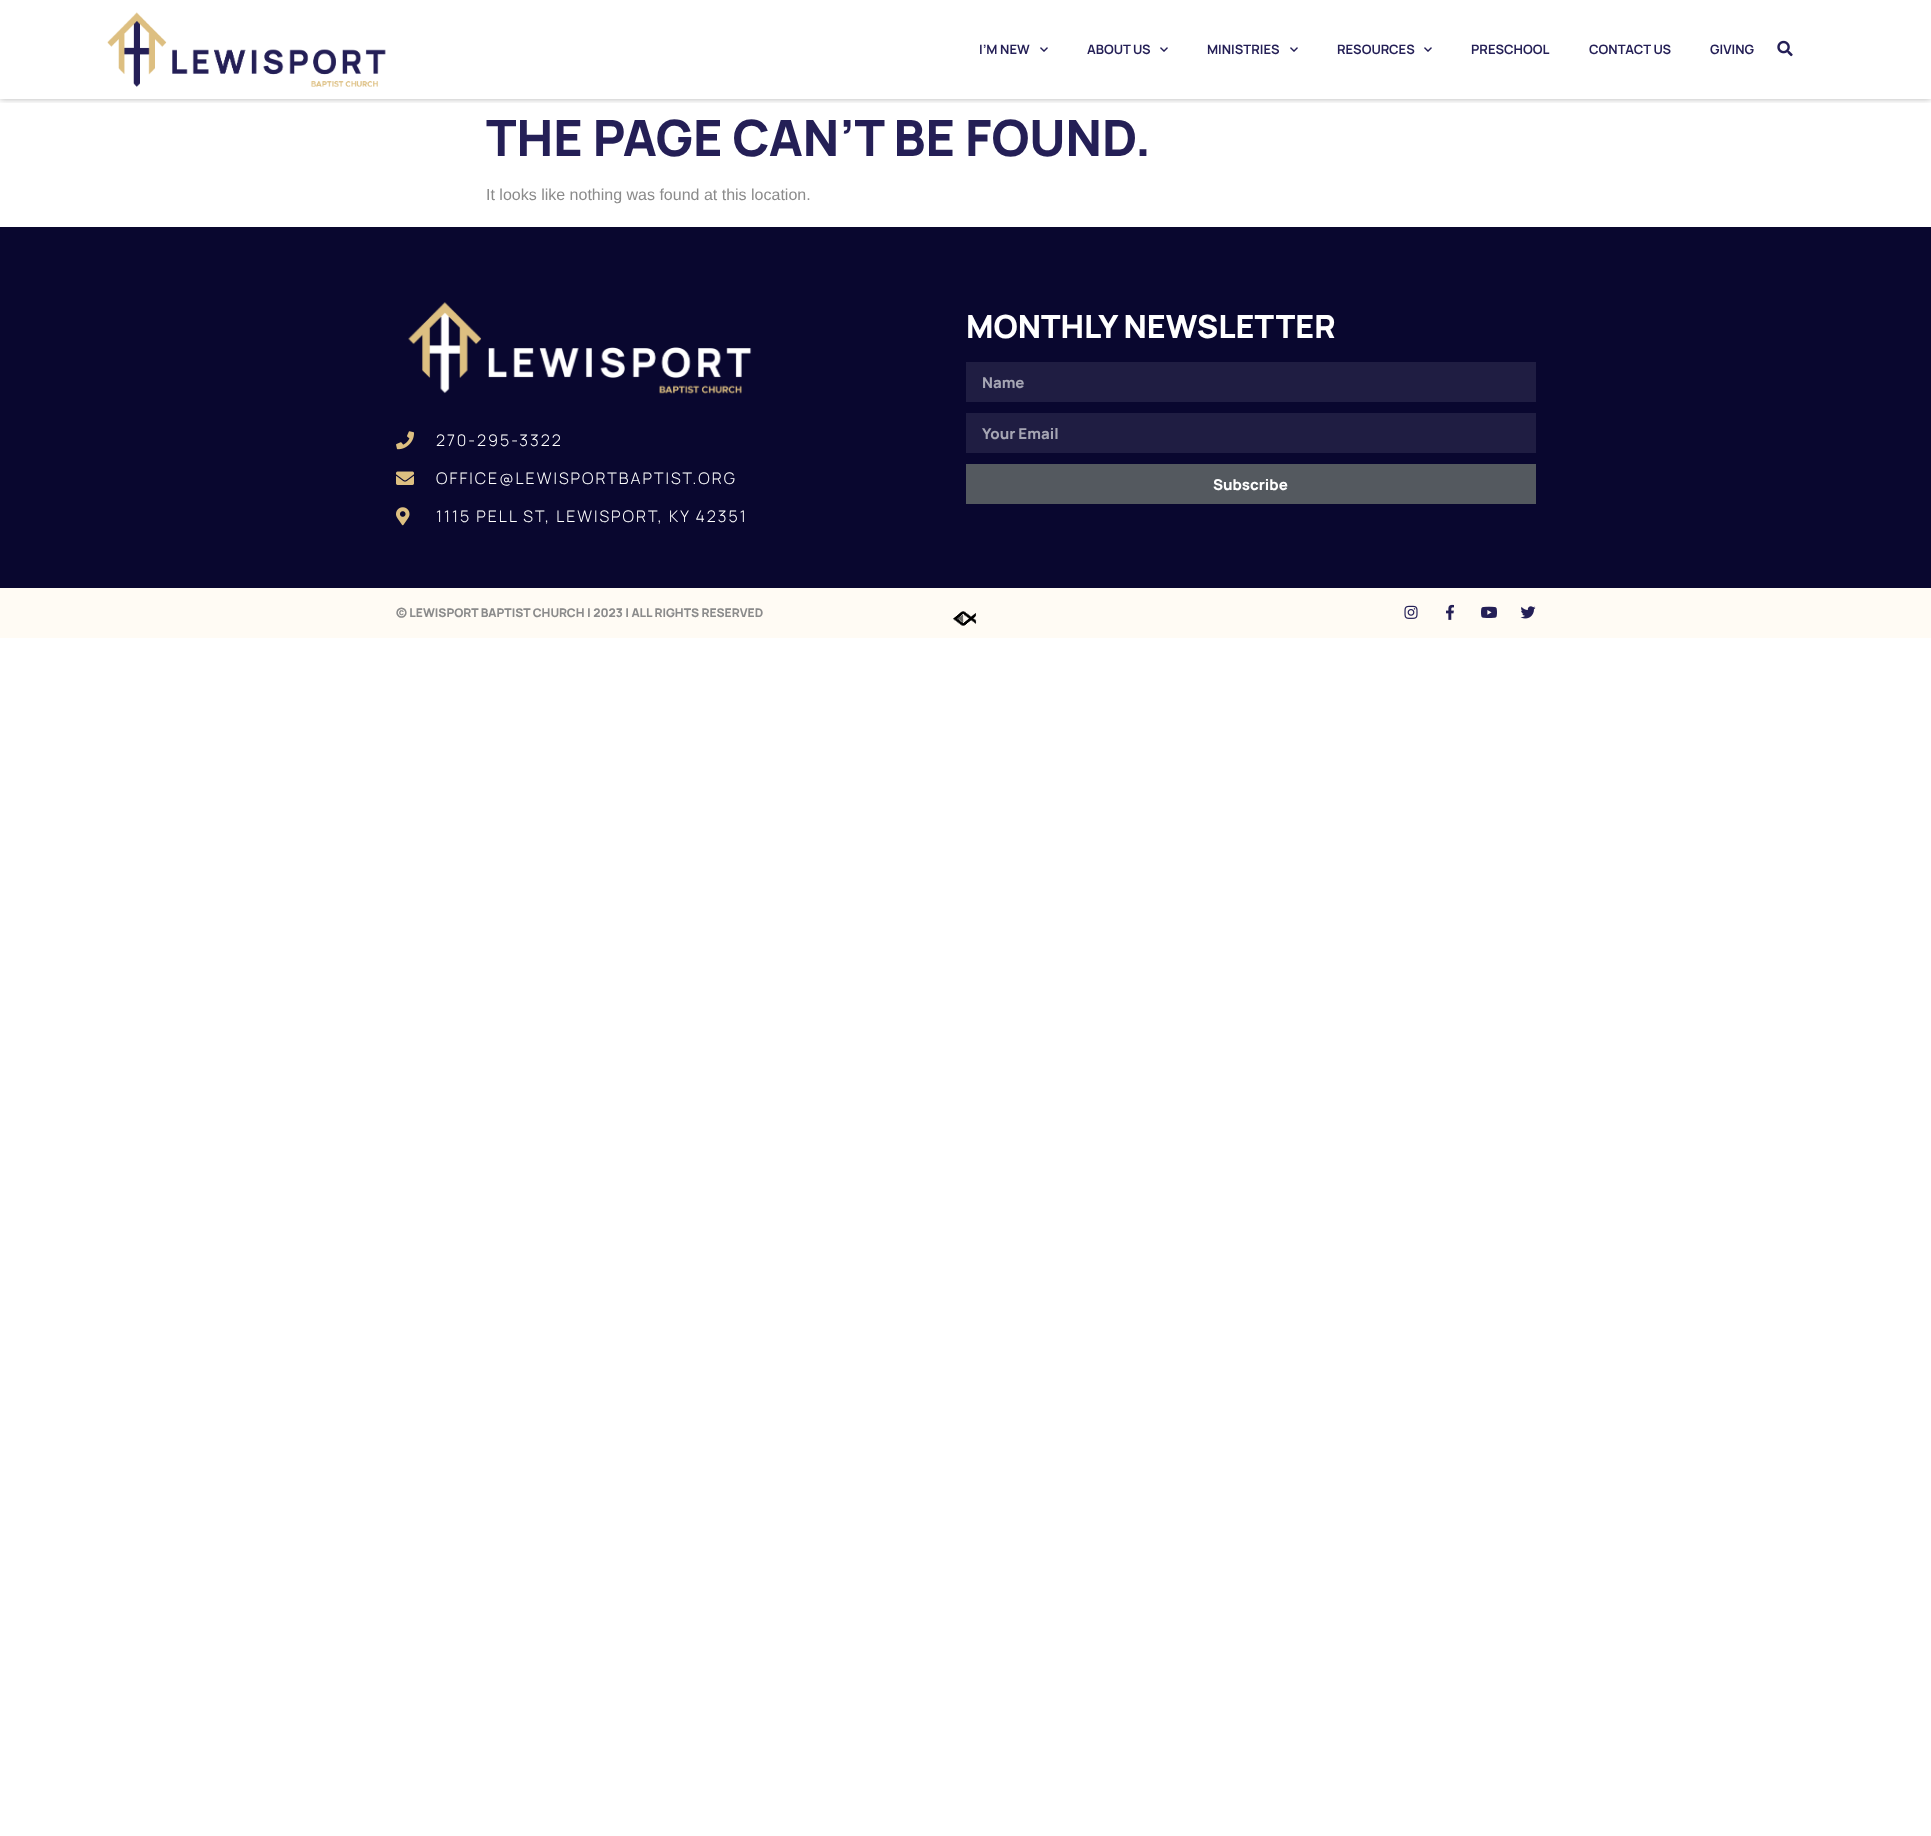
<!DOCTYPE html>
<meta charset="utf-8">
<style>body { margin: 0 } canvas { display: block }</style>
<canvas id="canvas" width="1931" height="1836"></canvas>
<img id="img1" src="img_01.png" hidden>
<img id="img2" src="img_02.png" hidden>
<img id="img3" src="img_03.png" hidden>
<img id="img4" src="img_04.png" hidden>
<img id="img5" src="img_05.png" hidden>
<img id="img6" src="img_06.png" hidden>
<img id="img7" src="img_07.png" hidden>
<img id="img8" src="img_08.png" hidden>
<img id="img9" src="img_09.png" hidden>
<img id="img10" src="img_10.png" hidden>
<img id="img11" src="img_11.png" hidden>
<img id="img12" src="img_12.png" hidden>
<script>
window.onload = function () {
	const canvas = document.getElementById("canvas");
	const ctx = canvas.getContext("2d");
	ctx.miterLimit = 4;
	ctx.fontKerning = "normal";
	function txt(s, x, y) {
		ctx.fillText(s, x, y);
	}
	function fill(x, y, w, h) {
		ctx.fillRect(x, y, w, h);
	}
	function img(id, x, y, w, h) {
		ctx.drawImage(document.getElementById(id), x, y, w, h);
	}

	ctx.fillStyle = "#FFFFFF";
	fill(0, 0, 1931, 1836);
	ctx.save();
	ctx.beginPath();
	ctx.rect(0, 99, 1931, 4);
	ctx.clip();
	ctx.fillStyle = "rgba(0, 0, 0, 0.3)";
	ctx.filter = "blur(3px)";
	ctx.beginPath();
	ctx.rect(0, 0, 1931, 99);
	ctx.fill();
	ctx.filter = "none";
	ctx.restore();
	img("img1", 107, 12, 279, 75);
	img("img2", 1040, 47, 8, 5);
	img("img2", 1160, 47, 8, 5);
	img("img2", 1290, 47, 8, 5);
	img("img2", 1424, 47, 8, 5);
	img("img3", 1777, 40, 16, 17);
	ctx.fillStyle = "#09072F";
	fill(0, 227, 1931, 361);
	img("img4", 408, 302, 344, 92);
	img("img5", 396, 431, 18, 19);
	img("img6", 396, 471, 18, 14);
	img("img7", 396, 507, 14, 19);
	ctx.fillStyle = "#1F1D42";
	fill(966, 362, 570, 40);
	fill(966, 413, 570, 40);
	ctx.fillStyle = "#54595F";
	fill(966, 464, 570, 40);
	ctx.fillStyle = "#FFFBF4";
	fill(0, 588, 1931, 50);
	img("img8", 1404, 605, 14, 14);
	img("img9", 1446, 604, 8, 16);
	img("img10", 1481, 606, 16, 12);
	img("img11", 1520, 606, 16, 13);
	img("img12", 953, 611, 24, 15);
	ctx.font = "bold 13px Manrope";
	ctx.fillStyle = "#241F56";
	txt("I’M NEW", 979, 54);
	txt("ABOUT US", 1087, 54);
	txt("MINISTRIES", 1207, 54);
	txt("RESOURCES", 1337, 54);
	txt("PRESCHOOL", 1471, 54);
	txt("CONTACT US", 1589, 54);
	txt("GIVING", 1710, 54);
	ctx.font = "800 50px Manrope";
	txt("THE PAGE CAN’T BE FOUND.", 486, 156);
	ctx.font = "16px Liberation Sans";
	ctx.fillStyle = "#8B8B8B";
	txt("It looks like nothing was found at this location.", 486, 200);
	ctx.letterSpacing = "2px";
	ctx.font = "300 16px Manrope";
	ctx.fillStyle = "#FFFFFF";
	txt("270-295-3322", 436, 446);
	txt("OFFICE@LEWISPORTBAPTIST.ORG", 436, 484);
	txt("1115 PELL ST, LEWISPORT, KY 42351", 436, 522);
	ctx.letterSpacing = "0px";
	ctx.font = "800 32px Manrope";
	txt("MONTHLY NEWSLETTER", 966, 338);
	ctx.font = "800 15px Manrope";
	ctx.fillStyle = "#A5A5B3";
	txt("Name", 982, 388);
	txt("Your Email", 982, 439);
	ctx.fillStyle = "#FFFFFF";
	txt("Subscribe", 1213, 490);
	ctx.font = "800 12px Manrope";
	ctx.fillStyle = "#8B8B8B";
	txt("© LEWISPORT BAPTIST CHURCH | 2023 | ALL RIGHTS RESERVED", 396, 617);
};
</script>
